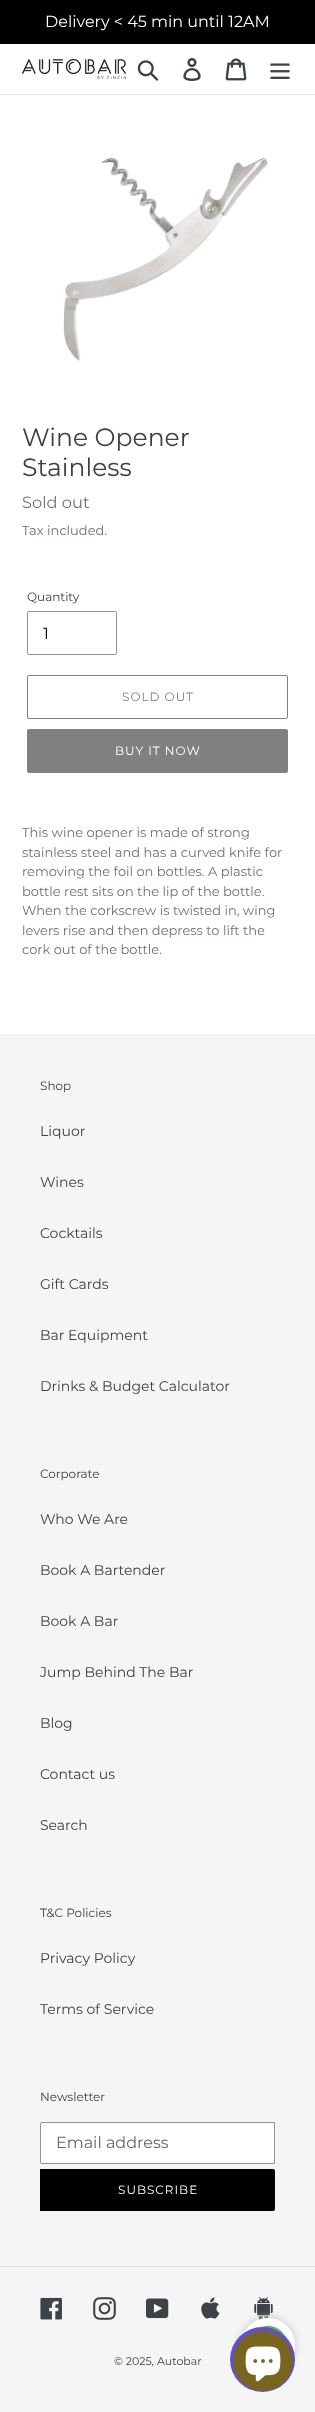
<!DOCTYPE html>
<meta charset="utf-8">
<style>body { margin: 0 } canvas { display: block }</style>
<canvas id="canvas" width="315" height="2412"></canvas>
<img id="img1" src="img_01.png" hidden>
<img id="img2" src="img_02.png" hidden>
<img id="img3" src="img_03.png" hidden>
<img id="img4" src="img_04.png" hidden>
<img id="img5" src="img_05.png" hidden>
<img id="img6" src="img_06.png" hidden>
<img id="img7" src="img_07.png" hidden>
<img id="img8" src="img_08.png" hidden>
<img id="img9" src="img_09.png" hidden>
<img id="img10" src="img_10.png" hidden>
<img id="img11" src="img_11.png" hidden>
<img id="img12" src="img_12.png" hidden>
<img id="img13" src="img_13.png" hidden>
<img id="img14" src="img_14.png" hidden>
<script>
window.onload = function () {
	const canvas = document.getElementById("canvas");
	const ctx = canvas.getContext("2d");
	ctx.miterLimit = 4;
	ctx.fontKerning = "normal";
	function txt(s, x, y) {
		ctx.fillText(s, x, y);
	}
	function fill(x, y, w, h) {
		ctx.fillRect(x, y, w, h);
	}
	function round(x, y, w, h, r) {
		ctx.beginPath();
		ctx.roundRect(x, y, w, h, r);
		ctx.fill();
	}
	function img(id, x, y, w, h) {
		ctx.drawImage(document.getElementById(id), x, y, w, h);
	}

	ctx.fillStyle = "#FFFFFF";
	fill(0, 0, 315, 2412);
	ctx.fillStyle = "#000000";
	fill(0, 0, 315, 44);
	ctx.fillStyle = "#E8E9EB";
	fill(0, 94, 315, 1);
	img("img1", 22, 59, 104, 20);
	img("img2", 137, 60, 22, 21);
	img("img3", 183, 58, 18, 23);
	img("img4", 225, 58, 22, 23);
	img("img5", 270, 63, 20, 16);
	img("img6", 63, 158, 205, 203);
	ctx.beginPath();
	ctx.roundRect(27.5, 611.5, 89, 43, 1.5);
	ctx.strokeStyle = "#949494";
	ctx.stroke();
	ctx.beginPath();
	ctx.roundRect(27.5, 675.5, 260, 43, 1.5);
	ctx.strokeStyle = "#808080";
	ctx.stroke();
	ctx.fillStyle = "#808080";
	round(27, 729, 261, 44, 2);
	ctx.fillStyle = "#F5F5F5";
	fill(0, 1034, 315, 1378);
	ctx.fillStyle = "#FFFFFF";
	ctx.beginPath();
	ctx.roundRect(40.5, 2122.5, 234, 41, [1.5, 0, 0, 1.5]);
	ctx.fill();
	ctx.strokeStyle = "#949494";
	ctx.stroke();
	ctx.fillStyle = "#000000";
	ctx.beginPath();
	ctx.roundRect(40, 2169, 235, 42, [0, 2, 2, 0]);
	ctx.fill();
	ctx.fillStyle = "#DCDCDC";
	fill(0, 2266, 315, 1);
	img("img7", 40, 2297, 22, 23);
	img("img8", 93, 2297, 23, 23);
	img("img9", 146, 2298, 23, 21);
	img("img10", 201, 2297, 19, 22);
	img("img11", 254, 2297, 19, 23);
	ctx.fillStyle = "#C2C2C2";
	ctx.filter = "blur(4px)";
	ctx.beginPath();
	ctx.roundRect(241, 2318, 54, 54, 27);
	ctx.fill();
	ctx.filter = "none";
	img("img12", 242, 2318, 53, 36);
	img("img13", 230, 2327, 65, 65);
	ctx.fillStyle = "#786520";
	ctx.beginPath();
	ctx.arc(263, 2361, 30, 0, Math.PI * 2);
	ctx.fill();
	img("img14", 245, 2346, 36, 36);
	ctx.font = "16px Montserrat";
	ctx.fillStyle = "#FFFFFF";
	txt("Delivery < 45 min until 12AM", 45, 27);
	ctx.font = "25px Montserrat";
	ctx.fillStyle = "#3D4246";
	txt("Wine Opener", 22, 446);
	txt("Stainless", 22, 476);
	ctx.font = "16.25px Montserrat";
	ctx.fillStyle = "#69727B";
	txt("Sold out", 22, 508);
	ctx.font = "13px Montserrat";
	txt("Tax included.", 22, 535);
	ctx.font = "12px Montserrat";
	ctx.fillStyle = "#3D4246";
	txt("Quantity", 27, 601);
	ctx.font = "16px Montserrat";
	ctx.fillStyle = "#000000";
	txt("1", 43, 639);
	ctx.letterSpacing = "1px";
	ctx.font = "12px Montserrat";
	ctx.fillStyle = "#808080";
	txt("SOLD OUT", 122, 701);
	ctx.fillStyle = "#FFFFFF";
	txt("BUY IT NOW", 115, 755);
	ctx.letterSpacing = "0px";
	ctx.font = "13px Montserrat";
	ctx.fillStyle = "#69727B";
	txt("This wine opener is made of strong", 22, 837);
	txt("stainless steel and has a curved knife for", 22, 857);
	txt("removing the foil on bottles. A plastic", 22, 876);
	txt("bottle rest sits on the lip of the bottle.", 22, 896);
	txt("When the corkscrew is twisted in, wing", 22, 915);
	txt("levers rise and then depress to lift the", 22, 935);
	txt("cork out of the bottle.", 22, 954);
	ctx.font = "12px Montserrat";
	ctx.fillStyle = "#3D4246";
	txt("Shop", 40, 1090);
	ctx.font = "14px Montserrat";
	txt("Liquor", 40, 1136);
	txt("Wines", 40, 1187);
	txt("Cocktails", 40, 1238);
	txt("Gift Cards", 40, 1289);
	txt("Bar Equipment", 40, 1340);
	txt("Drinks & Budget Calculator", 40, 1391);
	ctx.font = "12px Montserrat";
	txt("Corporate", 40, 1478);
	ctx.font = "14px Montserrat";
	txt("Who We Are", 40, 1524);
	txt("Book A Bartender", 40, 1575);
	txt("Book A Bar", 40, 1626);
	txt("Jump Behind The Bar", 40, 1677);
	txt("Blog", 40, 1728);
	txt("Contact us", 40, 1779);
	txt("Search", 40, 1830);
	ctx.font = "12px Montserrat";
	txt("T&C Policies", 40, 1917);
	ctx.font = "14px Montserrat";
	txt("Privacy Policy", 40, 1963);
	txt("Terms of Service", 40, 2014);
	ctx.font = "12px Montserrat";
	txt("Newsletter", 40, 2101);
	ctx.font = "16px Montserrat";
	ctx.fillStyle = "#666666";
	txt("Email address", 56, 2148);
	ctx.letterSpacing = "1px";
	ctx.font = "12px Montserrat";
	ctx.fillStyle = "#FFFFFF";
	txt("SUBSCRIBE", 118, 2194);
	ctx.letterSpacing = "0px";
	ctx.font = "11px Montserrat";
	ctx.fillStyle = "#3D4246";
	txt("© 2025, Autobar", 114, 2365);
};
</script>
